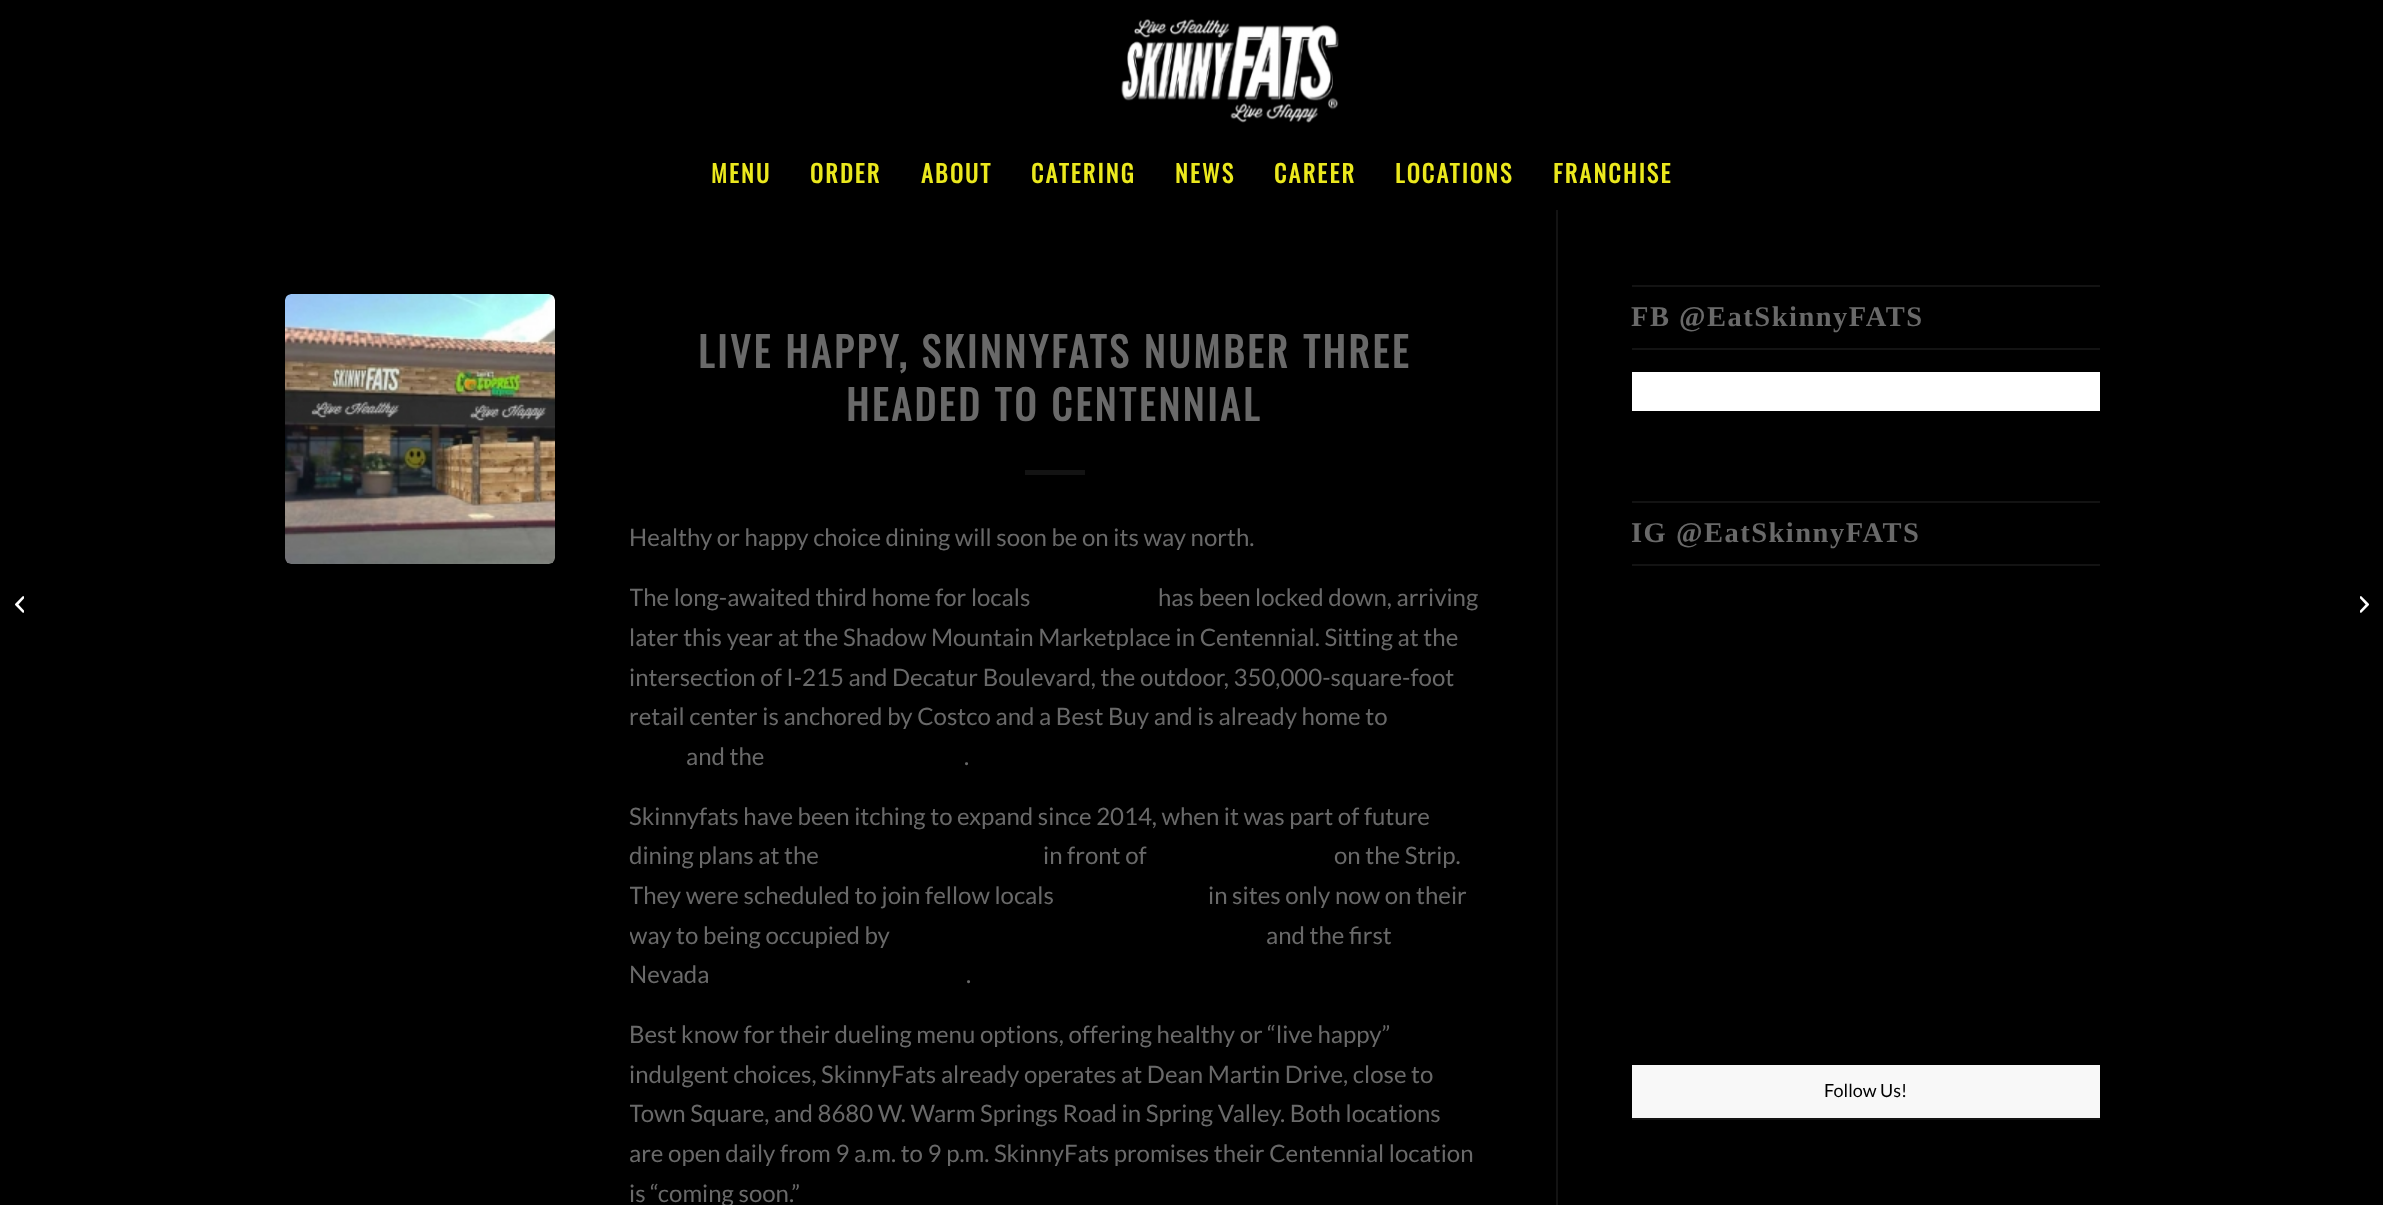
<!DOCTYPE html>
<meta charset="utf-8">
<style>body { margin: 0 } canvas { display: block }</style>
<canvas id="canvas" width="2383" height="1205"></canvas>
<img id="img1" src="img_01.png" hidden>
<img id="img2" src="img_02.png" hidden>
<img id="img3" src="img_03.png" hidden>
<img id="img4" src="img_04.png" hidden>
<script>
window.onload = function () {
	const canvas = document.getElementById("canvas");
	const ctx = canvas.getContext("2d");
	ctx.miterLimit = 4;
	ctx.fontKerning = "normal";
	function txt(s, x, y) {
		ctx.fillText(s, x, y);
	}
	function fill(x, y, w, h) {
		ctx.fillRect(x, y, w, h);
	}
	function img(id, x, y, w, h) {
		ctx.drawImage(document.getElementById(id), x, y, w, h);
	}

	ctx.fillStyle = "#000000";
	fill(0, 0, 2383, 1205);
	img("img1", 1121, 19, 218, 104);
	img("img2", 15, 596, 9, 17);
	ctx.fillStyle = "#131313";
	fill(1556, 210, 2, 995);
	img("img3", 285, 294, 270, 270);
	fill(1025, 470, 60, 5);
	fill(1632, 285, 468, 2);
	fill(1632, 348, 468, 2);
	ctx.fillStyle = "#FFFFFF";
	fill(1632, 372, 468, 39);
	ctx.fillStyle = "#131313";
	fill(1632, 501, 468, 2);
	fill(1632, 564, 468, 2);
	ctx.fillStyle = "#F8F8F8";
	fill(1632, 1065, 468, 53);
	ctx.fillStyle = "#131313";
	fill(1632, 1118, 468, 2);
	img("img4", 2360, 596, 9, 17);
	ctx.letterSpacing = "2.25px";
	ctx.font = "bold 24px Oswald";
	ctx.fillStyle = "#EBE81D";
	txt("MENU", 711, 183);
	txt("ORDER", 810, 183);
	txt("ABOUT", 921, 183);
	txt("CATERING", 1031, 183);
	txt("NEWS", 1175, 183);
	txt("CAREER", 1274, 183);
	txt("LOCATIONS", 1395, 183);
	txt("FRANCHISE", 1553, 183);
	ctx.letterSpacing = "3px";
	ctx.font = "bold 40.5px Oswald";
	ctx.fillStyle = "#696969";
	txt("LIVE HAPPY, SKINNYFATS NUMBER THREE", 698, 368);
	txt("HEADED TO CENTENNIAL", 846, 421);
	ctx.letterSpacing = "0px";
	ctx.font = "24px Lato";
	txt("Healthy or happy choice dining will soon be on its way north.", 629, 546);
	ctx.save();
	ctx.beginPath();
	ctx.rect(630, 285, 926, 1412);
	ctx.clip();
	txt("The long-awaited third home for locals", 629, 606);
	ctx.restore();
	txt("has been locked down, arriving", 1158, 606);
	txt("later this year at the Shadow Mountain Marketplace in Centennial. Sitting at the", 629, 646);
	txt("intersection of I-215 and Decatur Boulevard, the outdoor, 350,000-square-foot", 629, 686);
	txt("retail center is anchored by Costco and a Best Buy and is already home to", 629, 725);
	txt("and the", 686, 765);
	txt(".", 964, 765);
	txt("Skinnyfats have been itching to expand since 2014, when it was part of future", 629, 825);
	txt("dining plans at the", 629, 864);
	txt("in front of", 1043, 864);
	txt("on the Strip.", 1334, 864);
	ctx.save();
	ctx.beginPath();
	ctx.rect(630, 285, 926, 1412);
	ctx.clip();
	txt("They were scheduled to join fellow locals", 629, 904);
	ctx.restore();
	txt("in sites only now on their", 1208, 904);
	ctx.save();
	ctx.beginPath();
	ctx.rect(630, 285, 926, 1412);
	ctx.clip();
	txt("way to being occupied by", 629, 944);
	ctx.restore();
	txt("and the first", 1266, 944);
	txt("Nevada", 629, 983);
	txt(".", 966, 983);
	txt("Best know for their dueling menu options, offering healthy or “live happy”", 629, 1043);
	txt("indulgent choices, SkinnyFats already operates at Dean Martin Drive, close to", 629, 1083);
	ctx.save();
	ctx.beginPath();
	ctx.rect(630, 285, 926, 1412);
	ctx.clip();
	txt("Town Square, and 8680 W. Warm Springs Road in Spring Valley. Both locations", 629, 1122);
	ctx.restore();
	txt("are open daily from 9 a.m. to 9 p.m. SkinnyFats promises their Centennial location", 629, 1162);
	txt("is “coming soon.”", 629, 1202);
	ctx.letterSpacing = "1.5px";
	ctx.font = "bold 28.5px Liberation Serif";
	txt("FB @EatSkinnyFATS", 1631, 326);
	txt("IG @EatSkinnyFATS", 1631, 542);
	ctx.letterSpacing = "0px";
	ctx.font = "18px Lato";
	ctx.fillStyle = "#000000";
	txt("Follow Us!", 1824, 1097);
};
</script>
